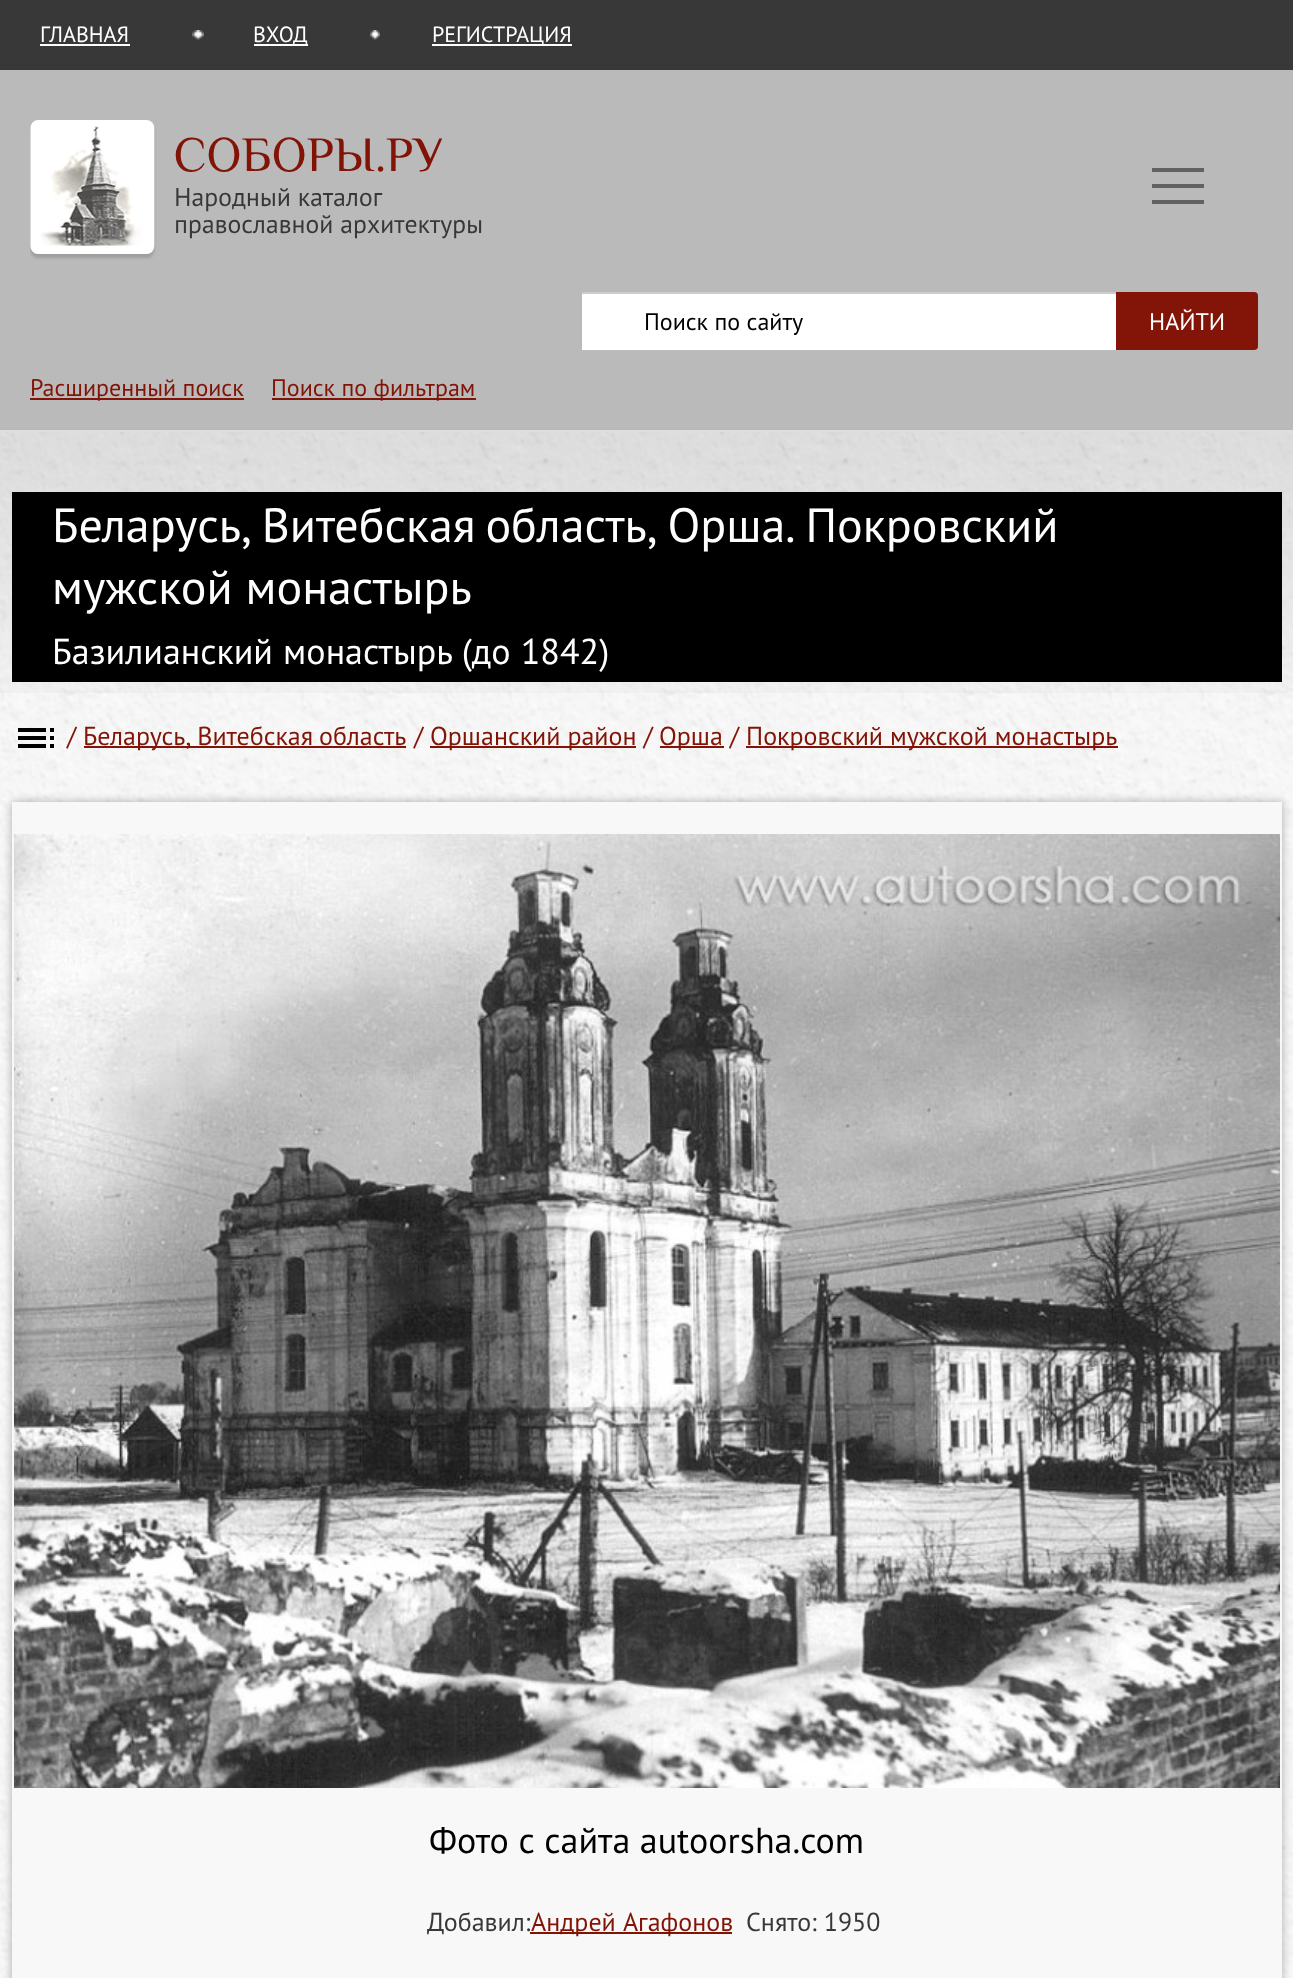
<!DOCTYPE html>
<meta charset="utf-8">
<style>body { margin: 0 } canvas { display: block }</style>
<canvas id="canvas" width="1293" height="1978"></canvas>
<img id="img1" src="img_01.png" hidden>
<img id="img2" src="img_02.png" hidden>
<img id="img3" src="img_03.png" hidden>
<img id="img4" src="img_04.png" hidden>
<img id="img5" src="img_05.png" hidden>
<img id="img6" src="img_06.png" hidden>
<img id="img7" src="img_07.png" hidden>
<script>
window.onload = function () {
	const canvas = document.getElementById("canvas");
	const ctx = canvas.getContext("2d");
	ctx.miterLimit = 4;
	ctx.fontKerning = "normal";
	function txt(s, x, y) {
		ctx.fillText(s, x, y);
	}
	function fill(x, y, w, h) {
		ctx.fillRect(x, y, w, h);
	}
	function img(id, x, y, w, h) {
		ctx.drawImage(document.getElementById(id), x, y, w, h);
	}

	ctx.fillStyle = "#FFFFFF";
	fill(0, 0, 1293, 1978);
	img("img1", 0, 432, 1293, 1546);
	ctx.fillStyle = "#383838";
	fill(0, 0, 1293, 70);
	ctx.fillStyle = "#FFFFFF";
	fill(40, 44, 90, 2);
	img("img2", 192, 30, 12, 10);
	fill(254, 44, 54, 2);
	img("img3", 370, 30, 10, 10);
	fill(432, 44, 140, 2);
	ctx.fillStyle = "#BABABA";
	fill(0, 70, 1293, 360);
	ctx.fillStyle = "#DEDEDE";
	fill(0, 430, 1293, 2);
	img("img4", 30, 120, 452, 140);
	ctx.fillStyle = "#616161";
	fill(1152, 184, 52, 4);
	fill(1152, 168, 52, 4);
	fill(1152, 200, 52, 4);
	ctx.fillStyle = "#FFFFFF";
	fill(582, 294, 534, 56);
	ctx.fillStyle = "#CCCCCC";
	fill(582, 292, 534, 2);
	ctx.fillStyle = "#821507";
	ctx.beginPath();
	ctx.roundRect(1116, 292, 142, 58, [0, 4, 4, 0]);
	ctx.fill();
	ctx.fillStyle = "#821407";
	fill(30, 398, 214, 2);
	fill(272, 398, 204, 2);
	img("img5", 0, 432, 1293, 261);
	ctx.fillStyle = "#000000";
	fill(12, 492, 1270, 190);
	img("img6", 18, 728, 36, 20);
	ctx.fillStyle = "#821407";
	fill(84, 746, 322, 2);
	fill(430, 746, 206, 2);
	fill(660, 746, 64, 2);
	fill(746, 746, 372, 2);
	ctx.fillStyle = "rgba(0, 0, 0, 0.3)";
	ctx.filter = "blur(5px)";
	ctx.beginPath();
	ctx.rect(12, 802, 1270, 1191);
	ctx.fill();
	ctx.filter = "none";
	ctx.fillStyle = "#F8F8F8";
	fill(12, 802, 1270, 1176);
	img("img7", 14, 834, 1266, 954);
	ctx.font = "22px PT Sans";
	ctx.fillStyle = "#FFFFFF";
	txt("ГЛАВНАЯ", 40, 42);
	txt("ВХОД", 253, 42);
	txt("РЕГИСТРАЦИЯ", 432, 42);
	ctx.font = "24px PT Sans";
	ctx.fillStyle = "#000000";
	txt("Поиск по сайту", 644, 330);
	ctx.fillStyle = "#FFFFFF";
	txt("НАЙТИ", 1149, 330);
	ctx.fillStyle = "#821407";
	txt("Расширенный поиск", 30, 396);
	txt("Поиск по фильтрам", 271, 396);
	ctx.wordSpacing = "-3px";
	ctx.font = "48px PT Sans";
	ctx.fillStyle = "#FFFFFF";
	txt("Беларусь, Витебская область, Орша. Покровский", 52, 542);
	ctx.wordSpacing = "0px";
	txt("мужской монастырь", 52, 604);
	ctx.wordSpacing = "0.5px";
	ctx.font = "36px PT Sans";
	txt("Базилианский монастырь (до 1842)", 52, 664);
	ctx.wordSpacing = "0px";
	ctx.font = "26px PT Sans";
	ctx.fillStyle = "#821407";
	txt("/", 67, 745);
	ctx.wordSpacing = "-1px";
	txt("Беларусь, Витебская область", 83, 745);
	ctx.wordSpacing = "0px";
	txt("/", 414, 745);
	txt("Оршанский район /", 430, 745);
	txt("Орша /", 659, 745);
	txt("Покровский мужской монастырь", 746, 745);
	ctx.font = "36px PT Sans";
	ctx.fillStyle = "#000000";
	txt("Фото с сайта autoorsha.com", 429, 1853);
	ctx.font = "26px PT Sans";
	ctx.fillStyle = "#383838";
	txt("Добавил:", 427, 1931);
	ctx.fillStyle = "#821407";
	fill(530, 1932, 202, 2);
	ctx.wordSpacing = "1px";
	txt("Андрей Агафонов", 531, 1931);
	ctx.wordSpacing = "0px";
	ctx.fillStyle = "#383838";
	txt("Снято: 1950", 746, 1931);
};
</script>
